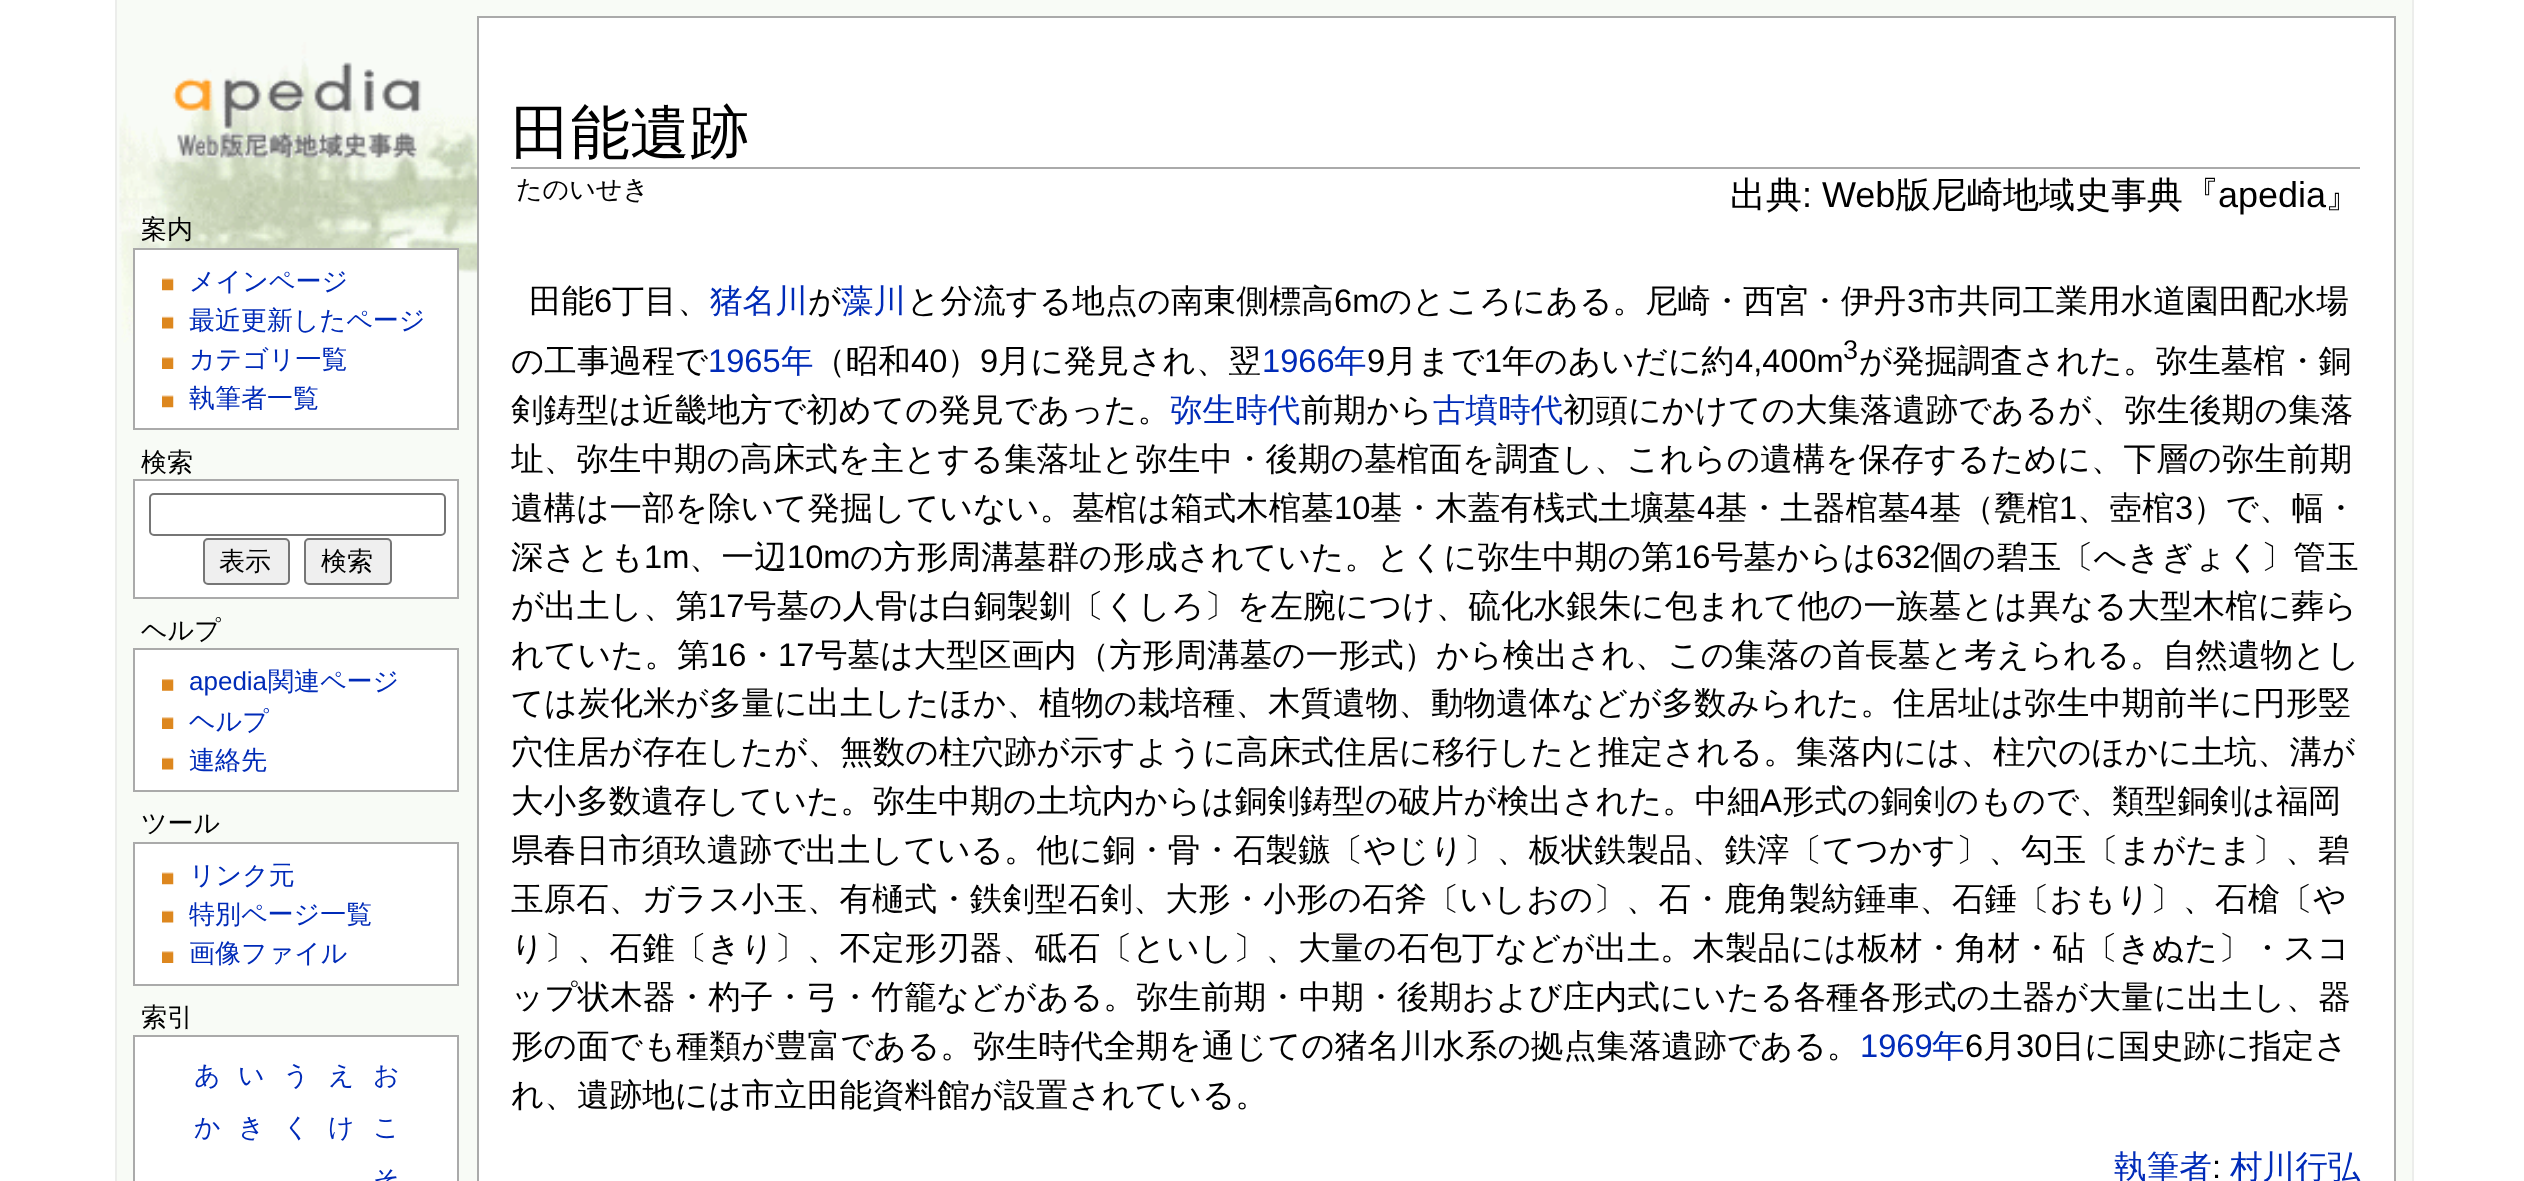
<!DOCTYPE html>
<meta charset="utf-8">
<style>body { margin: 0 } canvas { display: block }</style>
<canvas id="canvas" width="2524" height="1181"></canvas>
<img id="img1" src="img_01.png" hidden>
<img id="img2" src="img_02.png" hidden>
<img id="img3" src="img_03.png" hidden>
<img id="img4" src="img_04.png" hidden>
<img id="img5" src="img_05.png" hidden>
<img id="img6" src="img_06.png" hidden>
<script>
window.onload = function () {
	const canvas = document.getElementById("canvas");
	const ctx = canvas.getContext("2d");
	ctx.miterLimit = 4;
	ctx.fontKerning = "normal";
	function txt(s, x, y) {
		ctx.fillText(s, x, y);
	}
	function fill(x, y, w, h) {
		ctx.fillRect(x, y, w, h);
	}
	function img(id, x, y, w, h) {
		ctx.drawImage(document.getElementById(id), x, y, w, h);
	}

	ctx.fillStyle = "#FFFFFF";
	fill(0, 0, 2524, 1181);
	ctx.fillStyle = "#F8FBF6";
	fill(117, 0, 2295, 1181);
	img("img1", 119, 42, 358, 305);
	ctx.fillStyle = "#ECEDEB";
	fill(2412, 0, 2, 1181);
	fill(115, 0, 2, 1181);
	img("img2", 172, 62, 250, 97);
	ctx.fillStyle = "#FFFFFF";
	ctx.beginPath();
	ctx.rect(134, 249, 324, 180);
	ctx.fill();
	ctx.strokeStyle = "#AAAAAA";
	ctx.lineWidth = 2;
	ctx.stroke();
	img("img3", 162, 278, 12, 13);
	img("img4", 162, 316, 12, 13);
	img("img5", 162, 357, 12, 12);
	img("img3", 162, 395, 12, 13);
	ctx.beginPath();
	ctx.rect(134, 480, 324, 118);
	ctx.fill();
	ctx.stroke();
	ctx.beginPath();
	ctx.roundRect(150, 494, 295, 41, 4);
	ctx.strokeStyle = "#767676";
	ctx.stroke();
	ctx.fillStyle = "#EFEFEF";
	ctx.beginPath();
	ctx.roundRect(204, 539, 85, 45, 4);
	ctx.fill();
	ctx.stroke();
	ctx.beginPath();
	ctx.roundRect(305, 539, 86, 45, 4);
	ctx.fill();
	ctx.stroke();
	ctx.fillStyle = "#FFFFFF";
	ctx.beginPath();
	ctx.rect(134, 649, 324, 142);
	ctx.fill();
	ctx.strokeStyle = "#AAAAAA";
	ctx.stroke();
	img("img6", 162, 679, 12, 12);
	img("img5", 162, 717, 12, 12);
	img("img4", 162, 757, 12, 13);
	ctx.beginPath();
	ctx.rect(134, 843, 324, 142);
	ctx.fill();
	ctx.stroke();
	img("img3", 162, 872, 12, 13);
	img("img4", 162, 910, 12, 13);
	img("img5", 162, 951, 12, 12);
	ctx.beginPath();
	ctx.rect(134, 1036, 324, 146);
	ctx.fill();
	ctx.stroke();
	ctx.beginPath();
	ctx.rect(478, 17, 1917, 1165);
	ctx.fill();
	ctx.stroke();
	ctx.fillStyle = "#AAAAAA";
	fill(511, 167, 1849, 2);
	ctx.font = "500 26px WenQuanYi Zen Hei";
	ctx.fillStyle = "#000000";
	txt("案内", 141, 238);
	ctx.fillStyle = "#002BB8";
	txt("メインページ", 189, 290);
	txt("最近更新したページ", 189, 329);
	txt("カテゴリ一覧", 189, 368);
	txt("執筆者一覧", 189, 407);
	ctx.fillStyle = "#000000";
	txt("検索", 141, 471);
	txt("表示", 219, 570);
	txt("検索", 321, 570);
	txt("ヘルプ", 141, 639);
	ctx.font = "26px Liberation Sans";
	ctx.fillStyle = "#002BB8";
	txt("apedia", 189, 690);
	ctx.font = "500 26px WenQuanYi Zen Hei";
	txt("関連ページ", 268, 690);
	txt("ヘルプ", 189, 730);
	txt("連絡先", 189, 769);
	ctx.fillStyle = "#000000";
	txt("ツール", 141, 832);
	ctx.fillStyle = "#002BB8";
	txt("リンク元", 189, 884);
	txt("特別ページ一覧", 189, 923);
	txt("画像ファイル", 189, 962);
	ctx.fillStyle = "#000000";
	txt("索引", 141, 1026);
	ctx.fillStyle = "#002BB8";
	txt("あ", 194, 1084);
	txt("い", 238, 1084);
	txt("う", 283, 1084);
	txt("え", 328, 1084);
	txt("お", 373, 1084);
	txt("か", 194, 1136);
	txt("き", 238, 1136);
	txt("く", 283, 1136);
	txt("け", 328, 1136);
	txt("こ", 373, 1136);
	txt("そ", 373, 1188);
	ctx.font = "500 59.5px WenQuanYi Zen Hei";
	ctx.fillStyle = "#000000";
	txt("田能遺跡", 511, 153);
	ctx.font = "500 26px WenQuanYi Zen Hei";
	txt("たのいせき", 516, 198);
	ctx.font = "500 36px WenQuanYi Zen Hei";
	txt("出典", 1730, 207);
	ctx.font = "36px Liberation Sans";
	txt(": Web", 1802, 207);
	ctx.font = "500 36px WenQuanYi Zen Hei";
	txt("版尼崎地域史事典『", 1895, 207);
	ctx.font = "36px Liberation Sans";
	txt("apedia", 2218, 207);
	ctx.font = "500 36px WenQuanYi Zen Hei";
	txt("』", 2325, 207);
	ctx.font = "500 32.62px WenQuanYi Zen Hei";
	txt("田能", 529, 312);
	ctx.font = "32.62px Liberation Sans";
	txt("6", 594, 312);
	ctx.font = "500 32.62px WenQuanYi Zen Hei";
	txt("丁目、", 612, 312);
	ctx.fillStyle = "#002BB8";
	txt("猪名川", 710, 312);
	ctx.fillStyle = "#000000";
	txt("が", 808, 312);
	ctx.fillStyle = "#002BB8";
	txt("藻川", 841, 312);
	ctx.fillStyle = "#000000";
	txt("と分流する地点の南東側標高", 907, 312);
	ctx.font = "32.62px Liberation Sans";
	txt("6m", 1334, 312);
	ctx.font = "500 32.62px WenQuanYi Zen Hei";
	txt("のところにある。尼崎・西宮・伊丹", 1379, 312);
	ctx.font = "32.62px Liberation Sans";
	txt("3", 1907, 312);
	ctx.font = "500 32.62px WenQuanYi Zen Hei";
	txt("市共同工業用水道園田配水場", 1925, 312);
	txt("の工事過程で", 511, 372);
	ctx.font = "32.62px Liberation Sans";
	ctx.fillStyle = "#002BB8";
	txt("1965", 708, 372);
	ctx.font = "500 32.62px WenQuanYi Zen Hei";
	txt("年", 781, 372);
	ctx.fillStyle = "#000000";
	txt("（昭和", 813, 372);
	ctx.font = "32.62px Liberation Sans";
	txt("40", 911, 372);
	ctx.font = "500 32.62px WenQuanYi Zen Hei";
	txt("）", 947, 372);
	ctx.font = "32.62px Liberation Sans";
	txt("9", 980, 372);
	ctx.font = "500 32.62px WenQuanYi Zen Hei";
	txt("月に発見され、翌", 998, 372);
	ctx.font = "32.62px Liberation Sans";
	ctx.fillStyle = "#002BB8";
	txt("1966", 1262, 372);
	ctx.font = "500 32.62px WenQuanYi Zen Hei";
	txt("年", 1334, 372);
	ctx.font = "32.62px Liberation Sans";
	ctx.fillStyle = "#000000";
	txt("9", 1367, 372);
	ctx.font = "500 32.62px WenQuanYi Zen Hei";
	txt("月まで", 1385, 372);
	ctx.font = "32.62px Liberation Sans";
	txt("1", 1484, 372);
	ctx.font = "500 32.62px WenQuanYi Zen Hei";
	txt("年のあいだに約", 1502, 372);
	ctx.font = "32.62px Liberation Sans";
	txt("4,400m", 1735, 372);
	ctx.font = "27px Liberation Sans";
	txt("3", 1843, 359);
	ctx.font = "500 32.62px WenQuanYi Zen Hei";
	txt("が発掘調査された。弥生墓棺・銅", 1859, 372);
	txt("剣鋳型は近畿地方で初めての発見であった。", 511, 421);
	ctx.fillStyle = "#002BB8";
	txt("弥生時代", 1170, 421);
	ctx.fillStyle = "#000000";
	txt("前期から", 1301, 421);
	ctx.fillStyle = "#002BB8";
	txt("古墳時代", 1433, 421);
	ctx.fillStyle = "#000000";
	txt("初頭にかけての大集落遺跡であるが、弥生後期の集落", 1563, 421);
	txt("址、弥生中期の高床式を主とする集落址と弥生中・後期の墓棺面を調査し、これらの遺構を保存するために、下層の弥生前期", 511, 470);
	txt("遺構は一部を除いて発掘していない。墓棺は箱式木棺墓", 511, 519);
	ctx.font = "32.62px Liberation Sans";
	txt("10", 1334, 519);
	ctx.font = "500 32.62px WenQuanYi Zen Hei";
	txt("基・木蓋有桟式土壙墓", 1370, 519);
	ctx.font = "32.62px Liberation Sans";
	txt("4", 1697, 519);
	ctx.font = "500 32.62px WenQuanYi Zen Hei";
	txt("基・土器棺墓", 1715, 519);
	ctx.font = "32.62px Liberation Sans";
	txt("4", 1910, 519);
	ctx.font = "500 32.62px WenQuanYi Zen Hei";
	txt("基（甕棺", 1929, 519);
	ctx.font = "32.62px Liberation Sans";
	txt("1", 2059, 519);
	ctx.font = "500 32.62px WenQuanYi Zen Hei";
	txt("、壺棺", 2077, 519);
	ctx.font = "32.62px Liberation Sans";
	txt("3", 2175, 519);
	ctx.font = "500 32.62px WenQuanYi Zen Hei";
	txt("）で、幅・", 2193, 519);
	txt("深さとも", 511, 568);
	ctx.font = "32.62px Liberation Sans";
	txt("1m", 644, 568);
	ctx.font = "500 32.62px WenQuanYi Zen Hei";
	txt("、一辺", 689, 568);
	ctx.font = "32.62px Liberation Sans";
	txt("10m", 787, 568);
	ctx.font = "500 32.62px WenQuanYi Zen Hei";
	txt("の方形周溝墓群の形成されていた。とくに弥生中期の第", 850, 568);
	ctx.font = "32.62px Liberation Sans";
	txt("16", 1674, 568);
	ctx.font = "500 32.62px WenQuanYi Zen Hei";
	txt("号墓からは", 1711, 568);
	ctx.font = "32.62px Liberation Sans";
	txt("632", 1876, 568);
	ctx.font = "500 32.62px WenQuanYi Zen Hei";
	txt("個の碧玉〔へきぎょく〕管玉", 1930, 568);
	txt("が出土し、第", 511, 617);
	ctx.font = "32.62px Liberation Sans";
	txt("17", 708, 617);
	ctx.font = "500 32.62px WenQuanYi Zen Hei";
	txt("号墓の人骨は白銅製釧〔くしろ〕を左腕につけ、硫化水銀朱に包まれて他の一族墓とは異なる大型木棺に葬ら", 744, 617);
	txt("れていた。第", 511, 666);
	ctx.font = "32.62px Liberation Sans";
	txt("16", 710, 666);
	ctx.font = "500 32.62px WenQuanYi Zen Hei";
	txt("・", 746, 666);
	ctx.font = "32.62px Liberation Sans";
	txt("17", 778, 666);
	ctx.font = "500 32.62px WenQuanYi Zen Hei";
	txt("号墓は大型区画内（方形周溝墓の一形式）から検出され、この集落の首長墓と考えられる。自然遺物とし", 815, 666);
	txt("ては炭化米が多量に出土したほか、植物の栽培種、木質遺物、動物遺体などが多数みられた。住居址は弥生中期前半に円形竪", 511, 714);
	txt("穴住居が存在したが、無数の柱穴跡が示すように高床式住居に移行したと推定される。集落内には、柱穴のほかに土坑、溝が", 511, 763);
	txt("大小多数遺存していた。弥生中期の土坑内からは銅剣鋳型の破片が検出された。中細", 511, 812);
	ctx.font = "32.62px Liberation Sans";
	txt("A", 1760, 812);
	ctx.font = "500 32.62px WenQuanYi Zen Hei";
	txt("形式の銅剣のもので、類型銅剣は福岡", 1782, 812);
	txt("県春日市須玖遺跡で出土している。他に銅・骨・石製鏃〔やじり〕、板状鉄製品、鉄滓〔てつかす〕、勾玉〔まがたま〕、碧", 511, 861);
	txt("玉原石、ガラス小玉、有樋式・鉄剣型石剣、大形・小形の石斧〔いしおの〕、石・鹿角製紡錘車、石錘〔おもり〕、石槍〔や", 511, 910);
	txt("り〕、石錐〔きり〕、不定形刃器、砥石〔といし〕、大量の石包丁などが出土。木製品には板材・角材・砧〔きぬた〕・スコ", 511, 959);
	txt("ップ状木器・杓子・弓・竹籠などがある。弥生前期・中期・後期および庄内式にいたる各種各形式の土器が大量に出土し、器", 511, 1008);
	txt("形の面でも種類が豊富である。弥生時代全期を通じての猪名川水系の拠点集落遺跡である。", 511, 1057);
	ctx.font = "32.62px Liberation Sans";
	ctx.fillStyle = "#002BB8";
	txt("1969", 1860, 1057);
	ctx.font = "500 32.62px WenQuanYi Zen Hei";
	txt("年", 1932, 1057);
	ctx.font = "32.62px Liberation Sans";
	ctx.fillStyle = "#000000";
	txt("6", 1965, 1057);
	ctx.font = "500 32.62px WenQuanYi Zen Hei";
	txt("月", 1983, 1057);
	ctx.font = "32.62px Liberation Sans";
	txt("30", 2016, 1057);
	ctx.font = "500 32.62px WenQuanYi Zen Hei";
	txt("日に国史跡に指定さ", 2052, 1057);
	txt("れ、遺跡地には市立田能資料館が設置されている。", 511, 1106);
	ctx.fillStyle = "#002BB8";
	txt("執筆者", 2114, 1178);
	ctx.font = "32.62px Liberation Sans";
	ctx.fillStyle = "#000000";
	txt(":", 2212, 1178);
	ctx.font = "500 32.62px WenQuanYi Zen Hei";
	ctx.fillStyle = "#002BB8";
	txt("村川行弘", 2230, 1178);
};
</script>
